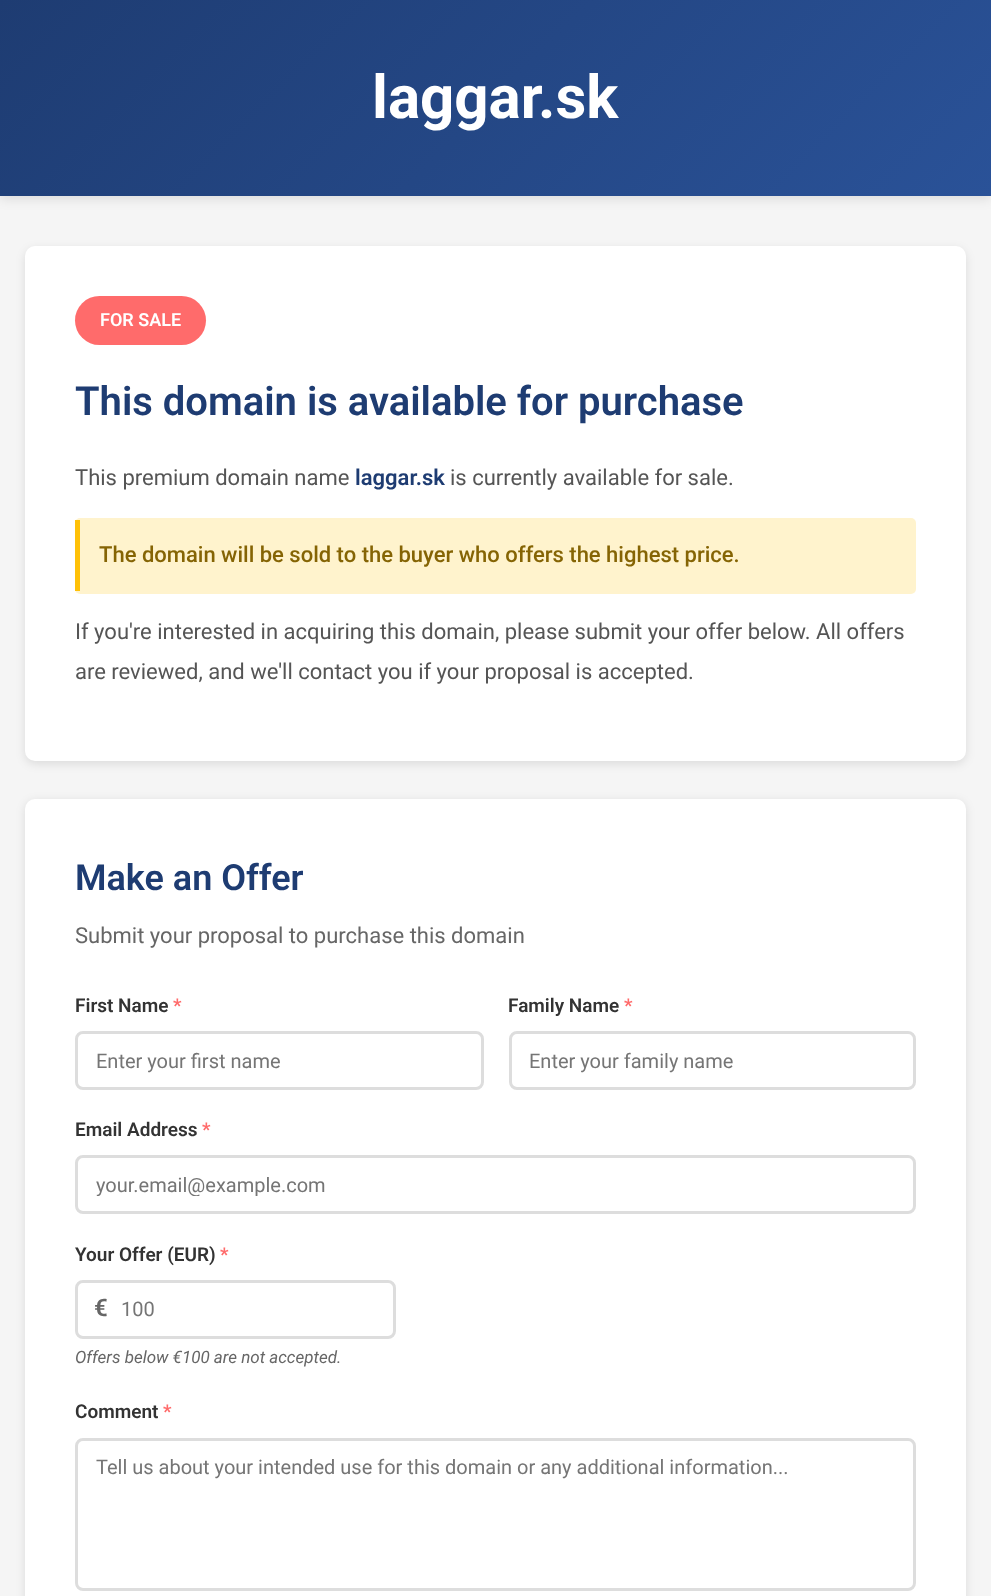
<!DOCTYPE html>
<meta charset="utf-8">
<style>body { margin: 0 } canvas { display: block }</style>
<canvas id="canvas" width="991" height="1596"></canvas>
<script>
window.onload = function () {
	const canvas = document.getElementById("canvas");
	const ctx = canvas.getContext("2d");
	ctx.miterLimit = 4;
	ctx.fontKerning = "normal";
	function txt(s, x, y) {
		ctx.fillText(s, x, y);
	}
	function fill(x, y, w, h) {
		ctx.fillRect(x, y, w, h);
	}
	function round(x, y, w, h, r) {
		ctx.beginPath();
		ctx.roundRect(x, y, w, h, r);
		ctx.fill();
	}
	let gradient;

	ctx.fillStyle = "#F5F5F5";
	fill(0, 0, 991, 1596);
	ctx.fillStyle = "rgba(0, 0, 0, 0.1)";
	ctx.filter = "blur(6px)";
	ctx.beginPath();
	ctx.rect(0, 3, 991, 196);
	ctx.fill();
	ctx.filter = "none";
	gradient = ctx.createLinearGradient(199, -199, 793, 395);
	gradient.addColorStop(0, "#1E3C72");
	gradient.addColorStop(1, "#2A5298");
	ctx.fillStyle = gradient;
	fill(0, 0, 991, 196);
	ctx.fillStyle = "rgba(0, 0, 0, 0.1)";
	ctx.filter = "blur(5px)";
	ctx.beginPath();
	ctx.roundRect(25, 249, 941, 515, 10);
	ctx.fill();
	ctx.filter = "none";
	ctx.fillStyle = "#FFFFFF";
	round(25, 246, 941, 515, 10);
	ctx.fillStyle = "#FF6B6B";
	round(75, 296, 131, 49, 24.5);
	ctx.fillStyle = "#FFF3CD";
	round(75, 518, 841, 76, 5);
	ctx.fillStyle = "#FFC107";
	fill(75, 520, 5, 71);
	ctx.fillStyle = "rgba(0, 0, 0, 0.1)";
	ctx.filter = "blur(5px)";
	ctx.beginPath();
	ctx.roundRect(25, 801, 941, 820, 10);
	ctx.fill();
	ctx.filter = "none";
	ctx.fillStyle = "#FFFFFF";
	round(25, 799, 941, 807, 10);
	ctx.beginPath();
	ctx.roundRect(76.5, 1032.5, 406, 56, 6.5);
	ctx.strokeStyle = "#DDDDDD";
	ctx.lineWidth = 3;
	ctx.stroke();
	ctx.beginPath();
	ctx.roundRect(510.5, 1032.5, 404, 56, 6.5);
	ctx.stroke();
	ctx.beginPath();
	ctx.roundRect(76.5, 1156.5, 838, 56, 6.5);
	ctx.stroke();
	ctx.beginPath();
	ctx.roundRect(76.5, 1281.5, 318, 56, 6.5);
	ctx.stroke();
	ctx.beginPath();
	ctx.roundRect(76.5, 1439.5, 838, 150, 6.5);
	ctx.stroke();
	ctx.font = "bold 60px Roboto";
	txt("laggar.sk", 372, 118);
	ctx.font = "600 18px Roboto";
	txt("FOR SALE", 100, 326);
	ctx.font = "600 40px Roboto";
	ctx.fillStyle = "#1E3C72";
	txt("This domain is available for purchase", 75, 415);
	ctx.font = "22px Roboto";
	ctx.fillStyle = "#555555";
	txt("This premium domain name", 75, 485);
	ctx.font = "600 22px Roboto";
	ctx.fillStyle = "#1E3C72";
	txt("laggar.sk", 355, 485);
	ctx.font = "22px Roboto";
	ctx.fillStyle = "#555555";
	txt("is currently available for sale.", 450, 485);
	ctx.font = "500 22px Roboto";
	ctx.fillStyle = "#856404";
	txt("The domain will be sold to the buyer who offers the highest price.", 99, 562);
	ctx.font = "22px Roboto";
	ctx.fillStyle = "#555555";
	txt("If you're interested in acquiring this domain, please submit your offer below. All offers", 75, 639);
	txt("are reviewed, and we'll contact you if your proposal is accepted.", 75, 679);
	ctx.font = "600 36px Roboto";
	ctx.fillStyle = "#1E3C72";
	txt("Make an Offer", 75, 890);
	ctx.font = "22px Roboto";
	ctx.fillStyle = "#666666";
	txt("Submit your proposal to purchase this domain", 75, 943);
	ctx.font = "600 19px Roboto";
	ctx.fillStyle = "#333333";
	txt("First Name", 75, 1012);
	ctx.fillStyle = "#FF6B6B";
	txt("*", 173, 1012);
	ctx.font = "20px Roboto";
	ctx.fillStyle = "#757575";
	txt("Enter your first name", 96, 1068);
	ctx.font = "600 19px Roboto";
	ctx.fillStyle = "#333333";
	txt("Family Name", 508, 1012);
	ctx.fillStyle = "#FF6B6B";
	txt("*", 624, 1012);
	ctx.font = "20px Roboto";
	ctx.fillStyle = "#757575";
	txt("Enter your family name", 529, 1068);
	ctx.font = "600 19px Roboto";
	ctx.fillStyle = "#333333";
	txt("Email Address", 75, 1136);
	ctx.fillStyle = "#FF6B6B";
	txt("*", 202, 1136);
	ctx.save();
	ctx.beginPath();
	ctx.rect(96, 1173, 799, 23);
	ctx.clip();
	ctx.font = "20px Roboto";
	ctx.fillStyle = "#757575";
	txt("your.email@example.com", 96, 1192);
	ctx.restore();
	ctx.fillStyle = "#333333";
	txt("Your Offer (EUR)", 75, 1261);
	ctx.fillStyle = "#FF6B6B";
	txt("*", 220, 1261);
	ctx.font = "600 24px Roboto";
	ctx.fillStyle = "#666666";
	txt("€", 94, 1316);
	ctx.font = "20px Roboto";
	ctx.fillStyle = "#757575";
	txt("100", 121, 1316);
	ctx.font = "italic 17px Roboto";
	ctx.fillStyle = "#666666";
	txt("Offers below €100 are not accepted.", 75, 1363);
	ctx.font = "600 19px Roboto";
	ctx.fillStyle = "#333333";
	txt("Comment", 75, 1418);
	ctx.fillStyle = "#FF6B6B";
	txt("*", 163, 1418);
	ctx.font = "20px Roboto";
	ctx.fillStyle = "#757575";
	txt("Tell us about your intended use for this domain or any additional information...", 96, 1474);
};
</script>
